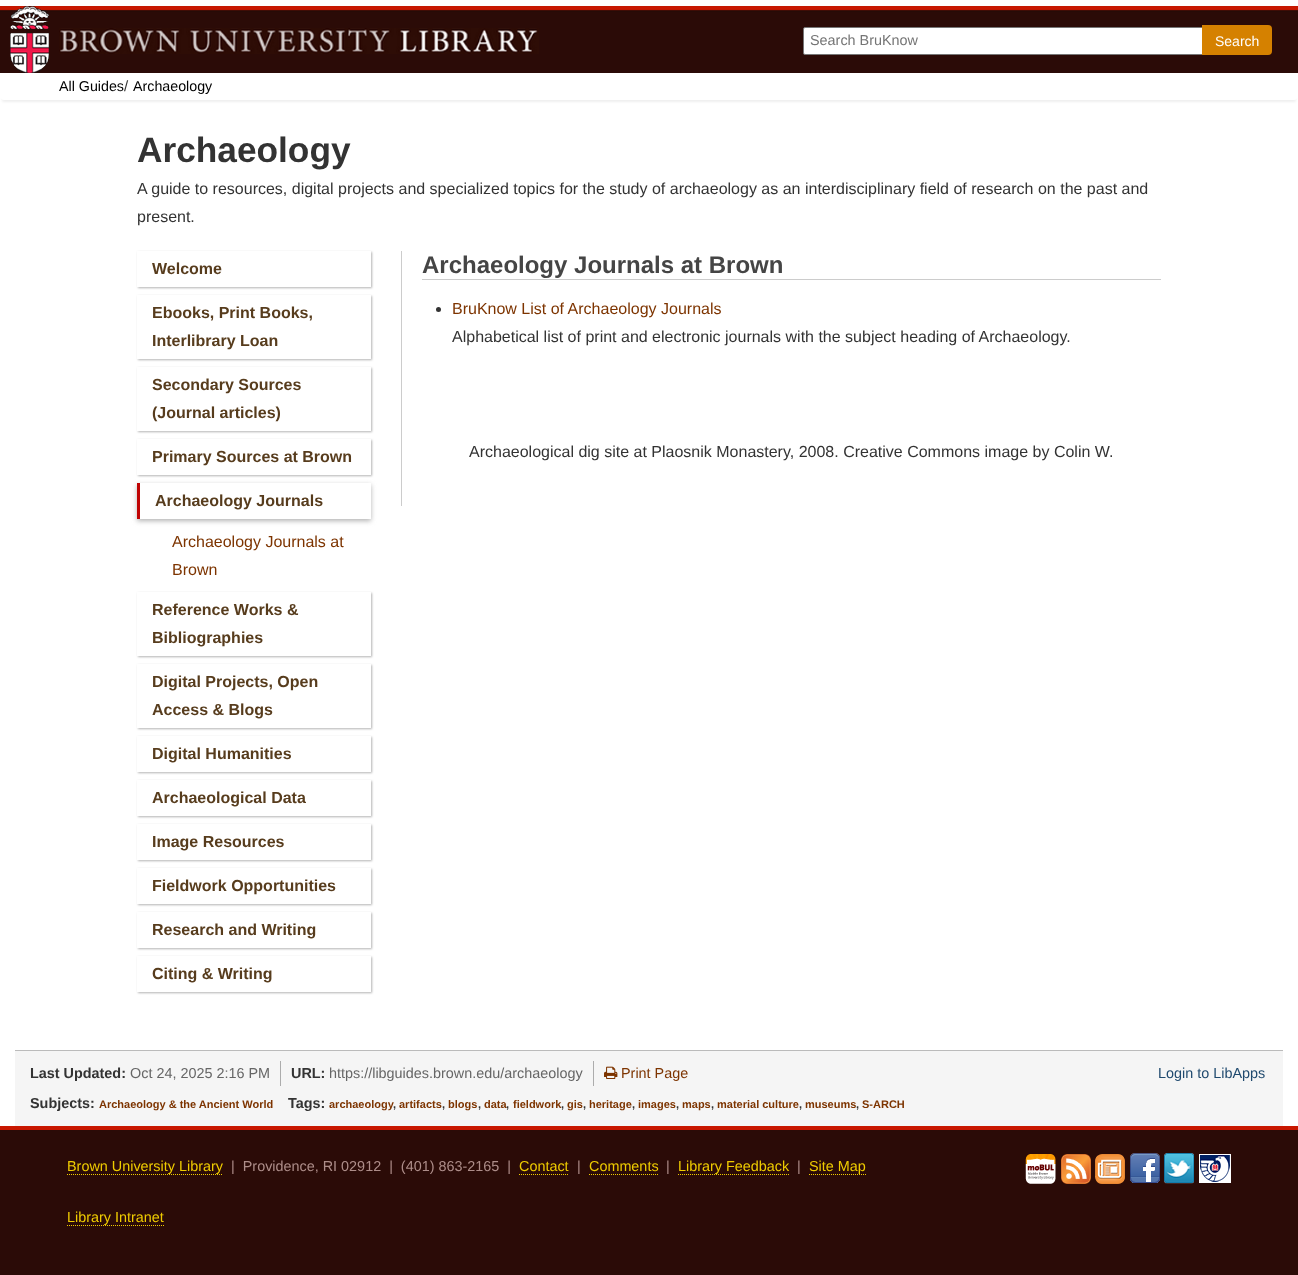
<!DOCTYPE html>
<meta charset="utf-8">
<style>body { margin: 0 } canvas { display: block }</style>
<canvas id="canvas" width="1298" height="1275"></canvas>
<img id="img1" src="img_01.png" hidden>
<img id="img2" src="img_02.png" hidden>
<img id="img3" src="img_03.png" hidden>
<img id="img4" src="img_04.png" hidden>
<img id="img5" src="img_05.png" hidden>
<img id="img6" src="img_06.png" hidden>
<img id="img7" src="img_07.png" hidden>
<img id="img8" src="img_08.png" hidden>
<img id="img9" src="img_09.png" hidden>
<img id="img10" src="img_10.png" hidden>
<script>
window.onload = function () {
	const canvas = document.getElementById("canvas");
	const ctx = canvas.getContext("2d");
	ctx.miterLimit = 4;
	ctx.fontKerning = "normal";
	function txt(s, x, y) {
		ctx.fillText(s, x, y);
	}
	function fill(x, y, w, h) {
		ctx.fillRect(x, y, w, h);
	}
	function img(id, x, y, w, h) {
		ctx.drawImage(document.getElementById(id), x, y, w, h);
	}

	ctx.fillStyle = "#FFFFFF";
	fill(0, 0, 1298, 1275);
	img("img1", 0, 6, 1298, 67);
	img("img2", 10, 6, 39, 67);
	img("img3", 59, 28, 480, 26);
	ctx.beginPath();
	ctx.roundRect(803.5, 27.5, 405, 27, 1.5);
	ctx.fill();
	ctx.strokeStyle = "#767676";
	ctx.stroke();
	ctx.fillStyle = "#D58100";
	ctx.beginPath();
	ctx.roundRect(1202, 25, 70, 30, [0, 4, 4, 0]);
	ctx.fill();
	ctx.save();
	ctx.beginPath();
	ctx.moveTo(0, 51);
	ctx.lineTo(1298, 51);
	ctx.lineTo(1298, 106);
	ctx.lineTo(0, 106);
	ctx.closePath();
	ctx.moveTo(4, 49);
	ctx.lineTo(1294, 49);
	ctx.bezierCurveTo(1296, 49, 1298, 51, 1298, 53);
	ctx.lineTo(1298, 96);
	ctx.bezierCurveTo(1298, 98, 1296, 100, 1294, 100);
	ctx.lineTo(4, 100);
	ctx.bezierCurveTo(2, 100, 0, 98, 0, 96);
	ctx.lineTo(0, 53);
	ctx.bezierCurveTo(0, 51, 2, 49, 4, 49);
	ctx.closePath();
	ctx.clip("evenodd");
	ctx.fillStyle = "#EFEFEF";
	ctx.filter = "blur(1px)";
	ctx.beginPath();
	ctx.roundRect(2, 55, 1294, 47, 2);
	ctx.fill();
	ctx.filter = "none";
	ctx.restore();
	ctx.save();
	ctx.beginPath();
	ctx.moveTo(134, 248);
	ctx.lineTo(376, 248);
	ctx.lineTo(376, 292);
	ctx.lineTo(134, 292);
	ctx.closePath();
	ctx.moveTo(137, 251);
	ctx.lineTo(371, 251);
	ctx.lineTo(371, 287);
	ctx.lineTo(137, 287);
	ctx.closePath();
	ctx.clip("evenodd");
	ctx.fillStyle = "#B3B3B3";
	ctx.filter = "blur(1px)";
	ctx.beginPath();
	ctx.rect(138, 252, 234, 36);
	ctx.fill();
	ctx.filter = "none";
	ctx.restore();
	ctx.save();
	ctx.beginPath();
	ctx.moveTo(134, 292);
	ctx.lineTo(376, 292);
	ctx.lineTo(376, 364);
	ctx.lineTo(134, 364);
	ctx.closePath();
	ctx.moveTo(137, 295);
	ctx.lineTo(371, 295);
	ctx.lineTo(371, 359);
	ctx.lineTo(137, 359);
	ctx.closePath();
	ctx.clip("evenodd");
	ctx.fillStyle = "#B3B3B3";
	ctx.filter = "blur(1px)";
	ctx.beginPath();
	ctx.rect(138, 296, 234, 64);
	ctx.fill();
	ctx.filter = "none";
	ctx.restore();
	ctx.save();
	ctx.beginPath();
	ctx.moveTo(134, 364);
	ctx.lineTo(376, 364);
	ctx.lineTo(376, 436);
	ctx.lineTo(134, 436);
	ctx.closePath();
	ctx.moveTo(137, 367);
	ctx.lineTo(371, 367);
	ctx.lineTo(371, 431);
	ctx.lineTo(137, 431);
	ctx.closePath();
	ctx.clip("evenodd");
	ctx.fillStyle = "#B3B3B3";
	ctx.filter = "blur(1px)";
	ctx.beginPath();
	ctx.rect(138, 368, 234, 64);
	ctx.fill();
	ctx.filter = "none";
	ctx.restore();
	ctx.save();
	ctx.beginPath();
	ctx.moveTo(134, 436);
	ctx.lineTo(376, 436);
	ctx.lineTo(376, 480);
	ctx.lineTo(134, 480);
	ctx.closePath();
	ctx.moveTo(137, 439);
	ctx.lineTo(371, 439);
	ctx.lineTo(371, 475);
	ctx.lineTo(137, 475);
	ctx.closePath();
	ctx.clip("evenodd");
	ctx.fillStyle = "#B3B3B3";
	ctx.filter = "blur(1px)";
	ctx.beginPath();
	ctx.rect(138, 440, 234, 36);
	ctx.fill();
	ctx.filter = "none";
	ctx.restore();
	ctx.save();
	ctx.beginPath();
	ctx.moveTo(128, 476);
	ctx.lineTo(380, 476);
	ctx.lineTo(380, 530);
	ctx.lineTo(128, 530);
	ctx.closePath();
	ctx.moveTo(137, 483);
	ctx.lineTo(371, 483);
	ctx.lineTo(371, 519);
	ctx.lineTo(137, 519);
	ctx.closePath();
	ctx.clip("evenodd");
	ctx.fillStyle = "#B3B3B3";
	ctx.filter = "blur(2.5px)";
	ctx.beginPath();
	ctx.rect(137, 485, 234, 36);
	ctx.fill();
	ctx.filter = "none";
	ctx.restore();
	ctx.fillStyle = "#C00404";
	fill(137, 483, 3, 36);
	ctx.save();
	ctx.beginPath();
	ctx.moveTo(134, 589);
	ctx.lineTo(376, 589);
	ctx.lineTo(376, 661);
	ctx.lineTo(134, 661);
	ctx.closePath();
	ctx.moveTo(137, 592);
	ctx.lineTo(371, 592);
	ctx.lineTo(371, 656);
	ctx.lineTo(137, 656);
	ctx.closePath();
	ctx.clip("evenodd");
	ctx.fillStyle = "#B3B3B3";
	ctx.filter = "blur(1px)";
	ctx.beginPath();
	ctx.rect(138, 593, 234, 64);
	ctx.fill();
	ctx.filter = "none";
	ctx.restore();
	ctx.save();
	ctx.beginPath();
	ctx.moveTo(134, 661);
	ctx.lineTo(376, 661);
	ctx.lineTo(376, 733);
	ctx.lineTo(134, 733);
	ctx.closePath();
	ctx.moveTo(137, 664);
	ctx.lineTo(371, 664);
	ctx.lineTo(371, 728);
	ctx.lineTo(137, 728);
	ctx.closePath();
	ctx.clip("evenodd");
	ctx.fillStyle = "#B3B3B3";
	ctx.filter = "blur(1px)";
	ctx.beginPath();
	ctx.rect(138, 665, 234, 64);
	ctx.fill();
	ctx.filter = "none";
	ctx.restore();
	ctx.save();
	ctx.beginPath();
	ctx.moveTo(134, 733);
	ctx.lineTo(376, 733);
	ctx.lineTo(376, 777);
	ctx.lineTo(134, 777);
	ctx.closePath();
	ctx.moveTo(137, 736);
	ctx.lineTo(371, 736);
	ctx.lineTo(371, 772);
	ctx.lineTo(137, 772);
	ctx.closePath();
	ctx.clip("evenodd");
	ctx.fillStyle = "#B3B3B3";
	ctx.filter = "blur(1px)";
	ctx.beginPath();
	ctx.rect(138, 737, 234, 36);
	ctx.fill();
	ctx.filter = "none";
	ctx.restore();
	ctx.save();
	ctx.beginPath();
	ctx.moveTo(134, 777);
	ctx.lineTo(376, 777);
	ctx.lineTo(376, 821);
	ctx.lineTo(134, 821);
	ctx.closePath();
	ctx.moveTo(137, 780);
	ctx.lineTo(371, 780);
	ctx.lineTo(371, 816);
	ctx.lineTo(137, 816);
	ctx.closePath();
	ctx.clip("evenodd");
	ctx.fillStyle = "#B3B3B3";
	ctx.filter = "blur(1px)";
	ctx.beginPath();
	ctx.rect(138, 781, 234, 36);
	ctx.fill();
	ctx.filter = "none";
	ctx.restore();
	ctx.save();
	ctx.beginPath();
	ctx.moveTo(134, 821);
	ctx.lineTo(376, 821);
	ctx.lineTo(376, 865);
	ctx.lineTo(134, 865);
	ctx.closePath();
	ctx.moveTo(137, 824);
	ctx.lineTo(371, 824);
	ctx.lineTo(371, 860);
	ctx.lineTo(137, 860);
	ctx.closePath();
	ctx.clip("evenodd");
	ctx.fillStyle = "#B3B3B3";
	ctx.filter = "blur(1px)";
	ctx.beginPath();
	ctx.rect(138, 825, 234, 36);
	ctx.fill();
	ctx.filter = "none";
	ctx.restore();
	ctx.save();
	ctx.beginPath();
	ctx.moveTo(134, 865);
	ctx.lineTo(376, 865);
	ctx.lineTo(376, 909);
	ctx.lineTo(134, 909);
	ctx.closePath();
	ctx.moveTo(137, 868);
	ctx.lineTo(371, 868);
	ctx.lineTo(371, 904);
	ctx.lineTo(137, 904);
	ctx.closePath();
	ctx.clip("evenodd");
	ctx.fillStyle = "#B3B3B3";
	ctx.filter = "blur(1px)";
	ctx.beginPath();
	ctx.rect(138, 869, 234, 36);
	ctx.fill();
	ctx.filter = "none";
	ctx.restore();
	ctx.save();
	ctx.beginPath();
	ctx.moveTo(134, 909);
	ctx.lineTo(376, 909);
	ctx.lineTo(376, 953);
	ctx.lineTo(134, 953);
	ctx.closePath();
	ctx.moveTo(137, 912);
	ctx.lineTo(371, 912);
	ctx.lineTo(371, 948);
	ctx.lineTo(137, 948);
	ctx.closePath();
	ctx.clip("evenodd");
	ctx.fillStyle = "#B3B3B3";
	ctx.filter = "blur(1px)";
	ctx.beginPath();
	ctx.rect(138, 913, 234, 36);
	ctx.fill();
	ctx.filter = "none";
	ctx.restore();
	ctx.save();
	ctx.beginPath();
	ctx.moveTo(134, 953);
	ctx.lineTo(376, 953);
	ctx.lineTo(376, 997);
	ctx.lineTo(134, 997);
	ctx.closePath();
	ctx.moveTo(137, 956);
	ctx.lineTo(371, 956);
	ctx.lineTo(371, 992);
	ctx.lineTo(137, 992);
	ctx.closePath();
	ctx.clip("evenodd");
	ctx.fillStyle = "#B3B3B3";
	ctx.filter = "blur(1px)";
	ctx.beginPath();
	ctx.rect(138, 957, 234, 36);
	ctx.fill();
	ctx.filter = "none";
	ctx.restore();
	ctx.fillStyle = "#CCCCCC";
	fill(401, 251, 1, 255);
	fill(422, 279, 739, 1);
	ctx.fillStyle = "#333333";
	ctx.beginPath();
	ctx.arc(438.5, 309.5, 2.5, 0, Math.PI * 2);
	ctx.fill();
	ctx.fillStyle = "#F5F5F5";
	fill(15, 1051, 1268, 75);
	ctx.fillStyle = "#BBBBBB";
	fill(15, 1050, 1268, 1);
	ctx.fillStyle = "#ACACAC";
	fill(280, 1061, 1, 25);
	fill(593, 1061, 1, 25);
	img("img4", 604, 1066, 14, 13);
	ctx.fillStyle = "#2B0B07";
	fill(0, 1130, 1298, 145);
	ctx.fillStyle = "#C81700";
	fill(0, 1126, 1298, 4);
	ctx.beginPath();
	ctx.moveTo(67, 1174.5);
	ctx.lineTo(223, 1174.5);
	ctx.strokeStyle = "#EFCC00";
	ctx.setLineDash([1, 1]);
	ctx.stroke();
	ctx.beginPath();
	ctx.moveTo(519, 1174.5);
	ctx.lineTo(569, 1174.5);
	ctx.stroke();
	ctx.beginPath();
	ctx.moveTo(589, 1174.5);
	ctx.lineTo(658, 1174.5);
	ctx.stroke();
	ctx.beginPath();
	ctx.moveTo(678, 1174.5);
	ctx.lineTo(789, 1174.5);
	ctx.stroke();
	ctx.beginPath();
	ctx.moveTo(809, 1174.5);
	ctx.lineTo(866, 1174.5);
	ctx.stroke();
	img("img5", 1025, 1154, 31, 30);
	img("img6", 1061, 1154, 30, 30);
	ctx.beginPath();
	ctx.moveTo(1095, 1176.5);
	ctx.lineTo(1125, 1176.5);
	ctx.stroke();
	img("img7", 1095, 1154, 30, 30);
	img("img8", 1130, 1153, 30, 30);
	img("img9", 1164, 1153, 30, 31);
	img("img10", 1199, 1154, 32, 29);
	ctx.beginPath();
	ctx.moveTo(67, 1225.5);
	ctx.lineTo(164, 1225.5);
	ctx.stroke();
	ctx.font = "14.4px Liberation Sans";
	ctx.fillStyle = "#757575";
	txt("Search BruKnow", 810, 45);
	ctx.font = "14px Liberation Sans";
	ctx.fillStyle = "#FFFFFF";
	txt("Search", 1215, 46);
	ctx.font = "14.25px Liberation Sans";
	ctx.fillStyle = "#000000";
	txt("All Guides", 59, 91);
	ctx.font = "15px Liberation Sans";
	ctx.fillStyle = "#333333";
	txt("/", 124, 91);
	ctx.font = "14.25px Liberation Sans";
	ctx.fillStyle = "#000000";
	txt("Archaeology", 133, 91);
	ctx.font = "bold 35.25px Liberation Sans";
	ctx.fillStyle = "#333333";
	txt("Archaeology", 137, 162);
	ctx.font = "16px Liberation Sans";
	txt("A guide to resources, digital projects and specialized topics for the study of archaeology as an interdisciplinary field of research on the past and", 137, 194);
	txt("present.", 137, 222);
	ctx.font = "bold 16px Liberation Sans";
	ctx.fillStyle = "#573C1D";
	txt("Welcome", 152, 274);
	txt("Ebooks, Print Books,", 152, 318);
	txt("Interlibrary Loan", 152, 346);
	txt("Secondary Sources", 152, 390);
	txt("(Journal articles)", 152, 418);
	txt("Primary Sources at Brown", 152, 462);
	txt("Archaeology Journals", 155, 506);
	ctx.font = "16px Liberation Sans";
	ctx.fillStyle = "#7D3400";
	txt("Archaeology Journals at", 172, 547);
	txt("Brown", 172, 575);
	ctx.font = "bold 16px Liberation Sans";
	ctx.fillStyle = "#573C1D";
	txt("Reference Works &", 152, 615);
	txt("Bibliographies", 152, 643);
	txt("Digital Projects, Open", 152, 687);
	txt("Access & Blogs", 152, 715);
	txt("Digital Humanities", 152, 759);
	txt("Archaeological Data", 152, 803);
	txt("Image Resources", 152, 847);
	txt("Fieldwork Opportunities", 152, 891);
	txt("Research and Writing", 152, 935);
	txt("Citing & Writing", 152, 979);
	ctx.font = "bold 24px Liberation Sans";
	ctx.fillStyle = "#454545";
	txt("Archaeology Journals at Brown", 422, 273);
	ctx.font = "16px Liberation Sans";
	ctx.fillStyle = "#7D3400";
	txt("BruKnow List of Archaeology Journals", 452, 314);
	ctx.fillStyle = "#333333";
	txt("Alphabetical list of print and electronic journals with the subject heading of Archaeology.", 452, 342);
	txt("Archaeological dig site at Plaosnik Monastery, 2008. Creative Commons image by Colin W.", 469, 457);
	ctx.font = "bold 14.4px Liberation Sans";
	txt("Last Updated:", 30, 1078);
	ctx.font = "14.4px Liberation Sans";
	ctx.fillStyle = "#666666";
	txt("Oct 24, 2025 2:16 PM", 130, 1078);
	ctx.font = "bold 14.4px Liberation Sans";
	ctx.fillStyle = "#333333";
	txt("URL:", 291, 1078);
	ctx.font = "14.4px Liberation Sans";
	ctx.fillStyle = "#666666";
	txt("https://libguides.brown.edu/archaeology", 329, 1078);
	ctx.fillStyle = "#7D3400";
	txt("Print Page", 621, 1078);
	ctx.fillStyle = "#1F496E";
	txt("Login to LibApps", 1158, 1078);
	ctx.font = "bold 14.4px Liberation Sans";
	ctx.fillStyle = "#333333";
	txt("Subjects:", 30, 1108);
	ctx.font = "bold 11px Liberation Sans";
	ctx.fillStyle = "#7D3400";
	txt("Archaeology & the Ancient World", 99, 1108);
	ctx.font = "bold 14.4px Liberation Sans";
	ctx.fillStyle = "#333333";
	txt("Tags:", 288, 1108);
	ctx.font = "bold 11px Liberation Sans";
	ctx.fillStyle = "#7D3400";
	txt("archaeology", 329, 1108);
	ctx.fillStyle = "#333333";
	txt(",", 393, 1108);
	ctx.fillStyle = "#7D3400";
	txt("artifacts", 399, 1108);
	ctx.fillStyle = "#333333";
	txt(",", 442, 1108);
	ctx.fillStyle = "#7D3400";
	txt("blogs", 448, 1108);
	ctx.fillStyle = "#333333";
	txt(",", 478, 1108);
	ctx.fillStyle = "#7D3400";
	txt("data", 484, 1108);
	ctx.fillStyle = "#333333";
	txt(",", 506, 1108);
	ctx.fillStyle = "#7D3400";
	txt("fieldwork", 513, 1108);
	ctx.fillStyle = "#333333";
	txt(",", 561, 1108);
	ctx.fillStyle = "#7D3400";
	txt("gis", 567, 1108);
	ctx.fillStyle = "#333333";
	txt(",", 583, 1108);
	ctx.fillStyle = "#7D3400";
	txt("heritage", 589, 1108);
	ctx.fillStyle = "#333333";
	txt(",", 632, 1108);
	ctx.fillStyle = "#7D3400";
	txt("images", 638, 1108);
	ctx.fillStyle = "#333333";
	txt(",", 676, 1108);
	ctx.fillStyle = "#7D3400";
	txt("maps", 682, 1108);
	ctx.fillStyle = "#333333";
	txt(",", 711, 1108);
	ctx.fillStyle = "#7D3400";
	txt("material culture", 717, 1108);
	ctx.fillStyle = "#333333";
	txt(",", 799, 1108);
	ctx.fillStyle = "#7D3400";
	txt("museums", 805, 1108);
	ctx.fillStyle = "#333333";
	txt(",", 856, 1108);
	ctx.fillStyle = "#7D3400";
	txt("S-ARCH", 862, 1108);
	ctx.font = "14.4px Liberation Sans";
	ctx.fillStyle = "#EFCC00";
	txt("Brown University Library", 67, 1171);
	ctx.fillStyle = "#AD8D89";
	txt("|  Providence, RI 02912  |  (401) 863-2165  |", 231, 1171);
	ctx.fillStyle = "#EFCC00";
	txt("Contact", 519, 1171);
	ctx.fillStyle = "#AD8D89";
	txt("|", 577, 1171);
	ctx.fillStyle = "#EFCC00";
	txt("Comments", 589, 1171);
	ctx.fillStyle = "#AD8D89";
	txt("|", 666, 1171);
	ctx.fillStyle = "#EFCC00";
	txt("Library Feedback", 678, 1171);
	ctx.fillStyle = "#AD8D89";
	txt("|", 797, 1171);
	ctx.fillStyle = "#EFCC00";
	txt("Site Map", 809, 1171);
	txt("Library Intranet", 67, 1222);
};
</script>
